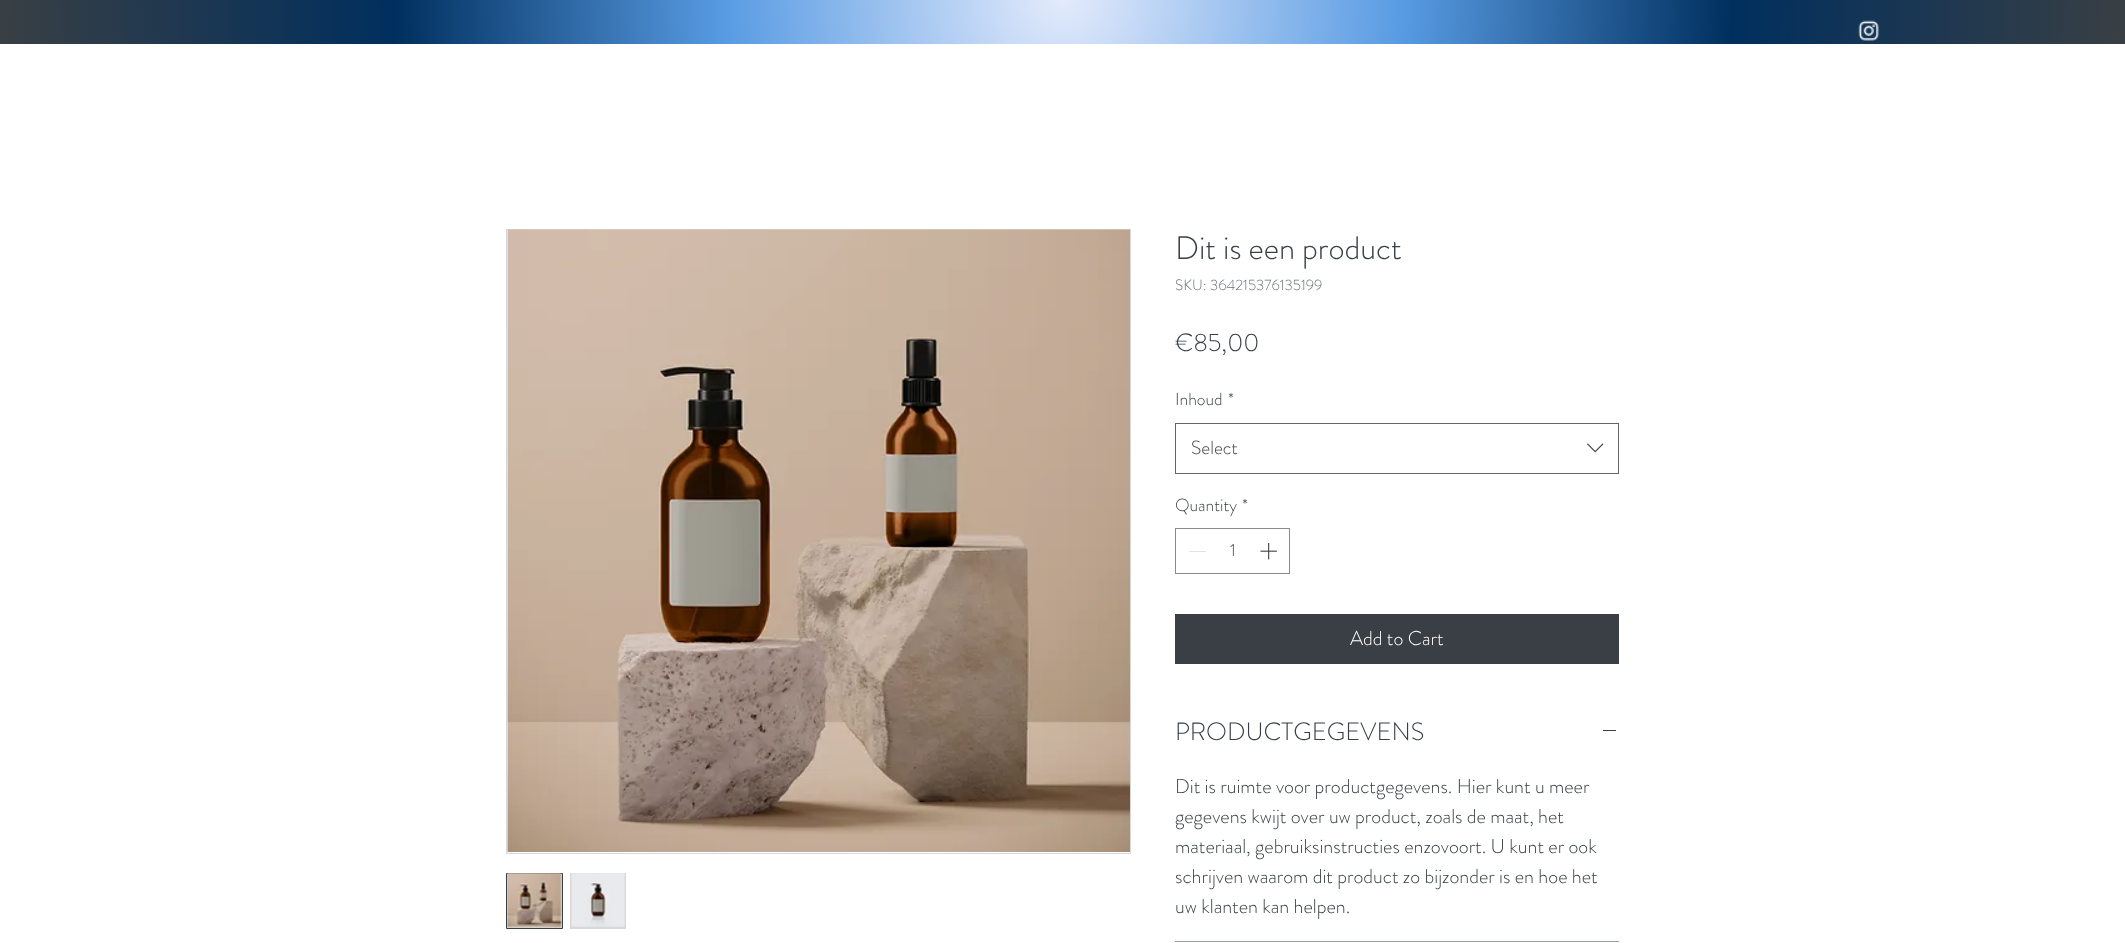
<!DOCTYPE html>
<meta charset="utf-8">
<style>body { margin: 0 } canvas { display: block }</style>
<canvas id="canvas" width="2125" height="943"></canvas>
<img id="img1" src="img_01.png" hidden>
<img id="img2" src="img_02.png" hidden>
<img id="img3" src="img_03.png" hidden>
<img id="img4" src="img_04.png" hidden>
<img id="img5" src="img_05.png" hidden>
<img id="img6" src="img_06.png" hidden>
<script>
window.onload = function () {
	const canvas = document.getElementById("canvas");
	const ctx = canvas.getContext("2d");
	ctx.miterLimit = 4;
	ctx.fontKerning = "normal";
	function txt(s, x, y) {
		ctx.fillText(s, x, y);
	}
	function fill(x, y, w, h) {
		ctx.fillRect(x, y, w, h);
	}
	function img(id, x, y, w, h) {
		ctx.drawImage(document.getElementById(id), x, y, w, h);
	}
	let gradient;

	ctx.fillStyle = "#FFFFFF";
	fill(0, 0, 2125, 943);
	gradient = ctx.createRadialGradient(1063, -1.9, 0, 1063, -1.9, 1063);
	gradient.addColorStop(0, "#E4EBFC");
	gradient.addColorStop(0.32, "#589BE3");
	gradient.addColorStop(0.63, "#002F5E");
	gradient.addColorStop(1, "#393F44");
	ctx.fillStyle = gradient;
	fill(0, 0, 2125, 44);
	img("img1", 1858, 20, 21, 21);
	ctx.strokeStyle = "#D8D8D8";
	ctx.strokeRect(506.5, 229.5, 624, 624);
	img("img2", 507, 229, 623, 623);
	ctx.fillStyle = "#D8D8D8";
	ctx.beginPath();
	ctx.rect(506.5, 873.5, 56, 55);
	ctx.fill();
	ctx.strokeStyle = "#393F44";
	ctx.stroke();
	img("img3", 507, 873, 55, 55);
	fill(570, 873, 56, 56);
	img("img4", 571, 873, 54, 54);
	ctx.strokeStyle = "#666666";
	ctx.strokeRect(1175.5, 423.5, 443, 50);
	img("img5", 1587, 443, 17, 10);
	ctx.strokeStyle = "#888C8F";
	ctx.strokeRect(1175.5, 528.5, 114, 45);
	ctx.fillStyle = "#E3E3E3";
	fill(1189, 551, 17, 1);
	img("img6", 1260, 542, 17, 18);
	ctx.fillStyle = "#393F44";
	fill(1175, 614, 444, 50);
	ctx.fillStyle = "#9A9FA5";
	fill(1175, 941, 444, 1);
	ctx.fillStyle = "#393F44";
	fill(1603, 730, 13, 1);
	ctx.font = "300 32.5px 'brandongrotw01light'";
	txt("Dit is een product", 1175, 259);
	ctx.font = "300 15px 'brandongrotw01light'";
	ctx.fillStyle = "#6D7377";
	txt("SKU: 364215376135199", 1175, 290);
	ctx.font = "300 25px 'brandongrotw01light'";
	ctx.fillStyle = "#393F44";
	txt("€85,00", 1175, 351);
	ctx.font = "300 17.5px 'brandongrotw01light'";
	txt("Inhoud", 1175, 405);
	txt("*", 1228, 405);
	ctx.font = "300 19px 'brandongrotw01light'";
	ctx.fillStyle = "#444444";
	txt("Select", 1191, 454);
	ctx.font = "300 17.5px 'brandongrotw01light'";
	ctx.fillStyle = "#393F44";
	txt("Quantity", 1175, 511);
	txt("*", 1242, 511);
	txt("1", 1230, 556);
	ctx.font = "300 20px 'brandongrotw01light'";
	ctx.fillStyle = "#FFFFFF";
	txt("Add to Cart", 1350, 645);
	ctx.font = "300 25px 'brandongrotw01light'";
	ctx.fillStyle = "#393F44";
	txt("PRODUCTGEGEVENS", 1175, 740);
	ctx.font = "300 20px 'brandongrotw01light'";
	txt("Dit is ruimte voor productgegevens. Hier kunt u meer", 1175, 793);
	txt("gegevens kwijt over uw product, zoals de maat, het", 1175, 823);
	txt("materiaal, gebruiksinstructies enzovoort. U kunt er ook", 1175, 853);
	txt("schrijven waarom dit product zo bijzonder is en hoe het", 1175, 883);
	txt("uw klanten kan helpen.", 1175, 913);
};
</script>
